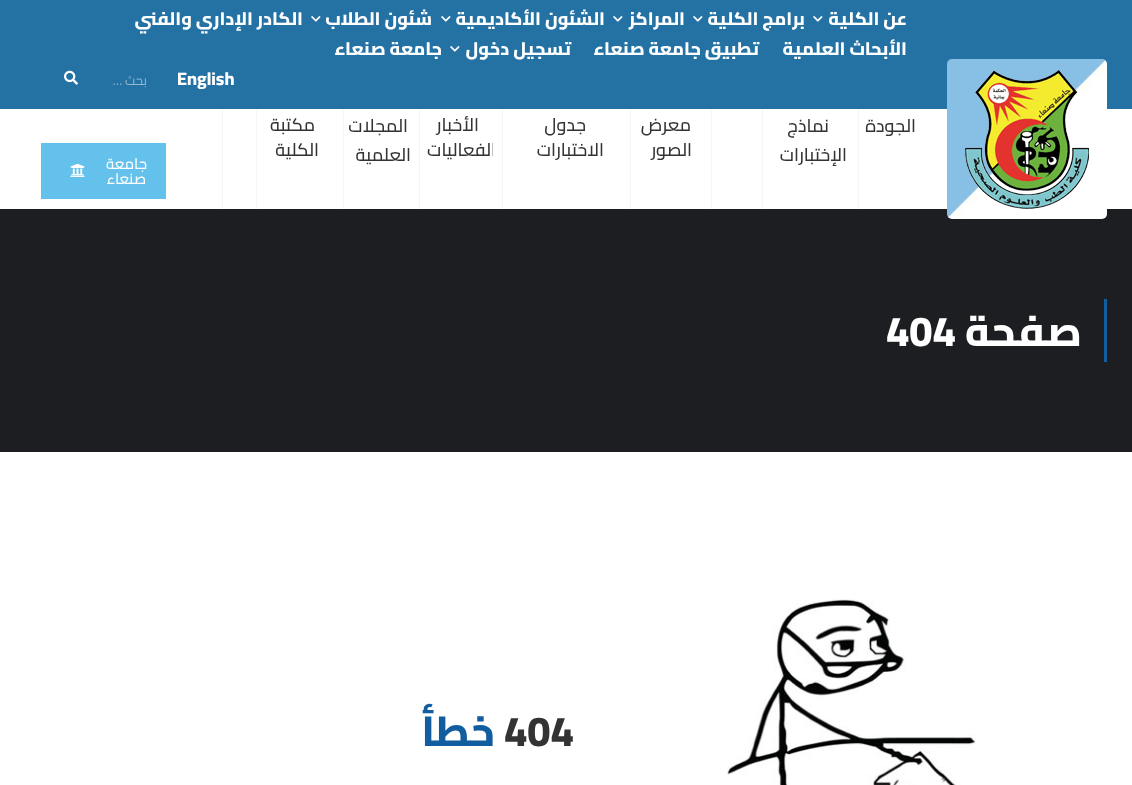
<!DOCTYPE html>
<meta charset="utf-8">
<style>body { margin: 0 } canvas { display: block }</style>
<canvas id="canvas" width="1132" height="785"></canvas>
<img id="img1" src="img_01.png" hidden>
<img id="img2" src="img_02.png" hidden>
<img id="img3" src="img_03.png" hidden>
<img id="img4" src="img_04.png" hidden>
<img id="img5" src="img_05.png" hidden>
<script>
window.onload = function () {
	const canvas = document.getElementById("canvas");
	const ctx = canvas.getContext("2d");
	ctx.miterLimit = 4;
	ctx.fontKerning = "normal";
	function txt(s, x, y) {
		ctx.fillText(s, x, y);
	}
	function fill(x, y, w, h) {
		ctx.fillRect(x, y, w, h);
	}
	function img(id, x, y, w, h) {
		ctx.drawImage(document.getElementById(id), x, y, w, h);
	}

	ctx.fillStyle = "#FFFFFF";
	fill(0, 0, 1132, 785);
	ctx.fillStyle = "#2471A4";
	fill(0, 0, 1132, 109);
	img("img1", 813, 16, 10, 6);
	img("img1", 693, 16, 10, 6);
	img("img1", 613, 16, 10, 6);
	img("img1", 441, 16, 10, 6);
	img("img1", 311, 16, 10, 6);
	img("img1", 450, 46, 10, 6);
	img("img2", 64, 70, 14, 15);
	ctx.fillStyle = "#1C1E22";
	fill(0, 209, 1132, 243);
	img("img3", 947, 59, 160, 160);
	ctx.fillStyle = "#F5F5F5";
	fill(858, 109, 1, 100);
	fill(762, 109, 1, 100);
	fill(711, 109, 1, 100);
	fill(630, 109, 1, 100);
	fill(502, 109, 1, 100);
	fill(419, 109, 1, 100);
	fill(343, 109, 1, 100);
	fill(256, 109, 1, 100);
	fill(222, 109, 1, 100);
	ctx.fillStyle = "#63C1EC";
	fill(41, 143, 125, 56);
	img("img4", 70, 163, 15, 14);
	ctx.fillStyle = "#125D9F";
	fill(1104, 299, 3, 63);
	img("img5", 727, 599, 249, 186);
	ctx.direction = "rtl";
	ctx.font = "800 18px Cairo";
	ctx.fillStyle = "#FFFFFF";
	txt("عن الكلية", 907, 25);
	txt("برامج الكلية", 805, 25);
	txt("المراكز", 685, 25);
	txt("الشئون الأكاديمية", 605, 25);
	txt("شئون الطلاب", 432, 25);
	txt("الكادر الإداري والفني", 303, 25);
	txt("الأبحاث العلمية", 907, 55);
	txt("تطبيق جامعة صنعاء", 759, 55);
	txt("تسجيل دخول", 571, 55);
	txt("جامعة صنعاء", 442, 55);
	ctx.direction = "ltr";
	txt("English", 177, 85);
	ctx.direction = "rtl";
	ctx.font = "13px Cairo";
	ctx.fillStyle = "#92B8D2";
	txt("بحث …", 147, 85);
	ctx.font = "500 18px Cairo";
	ctx.fillStyle = "#333333";
	txt("الجودة", 916, 132);
	txt("نماذج", 829, 132);
	txt("الإختبارات", 847, 161);
	txt("معرض", 691, 131);
	txt("الصور", 692, 156);
	txt("جدول", 586, 131);
	txt("الاختبارات", 604, 156);
	txt("الأخبار", 479, 131);
	ctx.save();
	ctx.beginPath();
	ctx.rect(420, 109, 73, 100);
	ctx.clip();
	txt("الفعاليات", 496, 156);
	ctx.restore();
	txt("المجلات", 408, 132);
	txt("العلمية", 411, 161);
	txt("مكتبة", 315, 131);
	txt("الكلية", 319, 156);
	ctx.font = "500 15px Cairo";
	ctx.fillStyle = "#FFFFFF";
	txt("جامعة", 147, 169);
	txt("صنعاء", 146, 184);
	ctx.font = "800 42px Cairo";
	txt("صفحة", 1082, 346);
	ctx.direction = "ltr";
	txt("404", 886, 346);
	ctx.fillStyle = "#333333";
	txt("404", 504, 746);
	ctx.direction = "rtl";
	ctx.fillStyle = "#125D9F";
	txt("خطأ", 495, 746);
};
</script>
